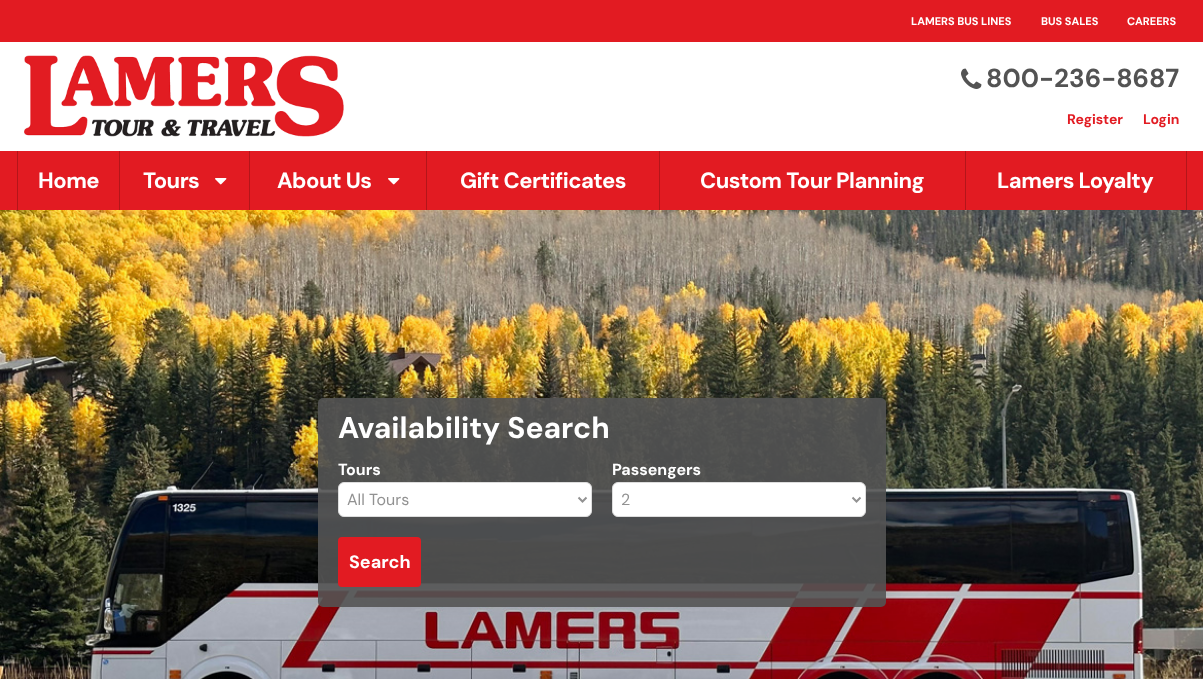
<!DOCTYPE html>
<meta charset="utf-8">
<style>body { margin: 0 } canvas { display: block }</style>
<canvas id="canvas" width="1203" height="679"></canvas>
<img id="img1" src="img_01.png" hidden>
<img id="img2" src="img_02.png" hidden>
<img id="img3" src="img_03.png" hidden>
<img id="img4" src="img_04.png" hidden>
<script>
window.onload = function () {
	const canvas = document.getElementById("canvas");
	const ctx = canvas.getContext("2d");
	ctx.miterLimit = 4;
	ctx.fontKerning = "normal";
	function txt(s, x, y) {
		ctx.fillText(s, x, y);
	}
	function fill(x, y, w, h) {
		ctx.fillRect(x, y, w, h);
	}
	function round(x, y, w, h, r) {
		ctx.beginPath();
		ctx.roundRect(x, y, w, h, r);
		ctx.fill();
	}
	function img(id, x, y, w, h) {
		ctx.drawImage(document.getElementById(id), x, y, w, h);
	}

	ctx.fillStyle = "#FFFFFF";
	fill(0, 0, 1203, 679);
	ctx.fillStyle = "#E21B22";
	fill(0, 0, 1203, 42);
	img("img1", 961, 68, 21, 21);
	img("img2", 24, 55, 320, 82);
	fill(0, 151, 1203, 59);
	ctx.fillStyle = "#B4151A";
	fill(119, 151, 1, 59);
	fill(17, 151, 1, 59);
	fill(249, 151, 1, 59);
	img("img3", 215, 178, 12, 7);
	fill(426, 151, 1, 59);
	img("img3", 388, 178, 12, 7);
	fill(659, 151, 1, 59);
	fill(965, 151, 1, 59);
	fill(1186, 151, 1, 59);
	img("img4", 0, 210, 1203, 469);
	ctx.save();
	ctx.beginPath();
	ctx.moveTo(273, 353);
	ctx.lineTo(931, 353);
	ctx.lineTo(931, 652);
	ctx.lineTo(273, 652);
	ctx.closePath();
	ctx.moveTo(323, 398);
	ctx.lineTo(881, 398);
	ctx.bezierCurveTo(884, 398, 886, 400, 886, 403);
	ctx.lineTo(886, 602);
	ctx.bezierCurveTo(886, 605, 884, 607, 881, 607);
	ctx.lineTo(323, 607);
	ctx.bezierCurveTo(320, 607, 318, 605, 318, 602);
	ctx.lineTo(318, 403);
	ctx.bezierCurveTo(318, 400, 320, 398, 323, 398);
	ctx.closePath();
	ctx.clip("evenodd");
	ctx.fillStyle = "rgba(0, 0, 0, 0.1)";
	ctx.filter = "blur(14.5px)";
	ctx.beginPath();
	ctx.roundRect(318, 398, 568, 209, 5);
	ctx.fill();
	ctx.filter = "none";
	ctx.restore();
	ctx.fillStyle = "rgba(83, 83, 83, 0.9)";
	round(318, 398, 568, 209, 5);
	ctx.fillStyle = "#FFFFFF";
	ctx.beginPath();
	ctx.roundRect(338.5, 482.5, 253, 34, 5.5);
	ctx.fill();
	ctx.strokeStyle = "#DDDDDD";
	ctx.stroke();
	ctx.beginPath();
	ctx.moveTo(578.5, 497.5);
	ctx.lineTo(582.5, 501.5);
	ctx.lineTo(586.5, 497.5);
	ctx.strokeStyle = "#929292";
	ctx.lineWidth = 2;
	ctx.stroke();
	ctx.beginPath();
	ctx.roundRect(612.5, 482.5, 253, 34, 5.5);
	ctx.fill();
	ctx.strokeStyle = "#DDDDDD";
	ctx.lineWidth = 1;
	ctx.stroke();
	ctx.beginPath();
	ctx.moveTo(852.5, 497.5);
	ctx.lineTo(856.5, 501.5);
	ctx.lineTo(860.5, 497.5);
	ctx.strokeStyle = "#929292";
	ctx.lineWidth = 2;
	ctx.stroke();
	ctx.fillStyle = "#E21B22";
	round(338, 537, 83, 50, 4);
	ctx.font = "bold 11px DM Sans";
	ctx.fillStyle = "#FFFFFF";
	txt("LAMERS BUS LINES", 911, 25);
	txt("BUS SALES", 1041, 25);
	txt("CAREERS", 1127, 25);
	ctx.font = "bold 26px DM Sans";
	ctx.fillStyle = "#535353";
	txt("800-236-8687", 986, 87);
	ctx.font = "bold 14px DM Sans";
	ctx.fillStyle = "#E21B22";
	txt("Register", 1067, 124);
	txt("Login", 1143, 124);
	ctx.letterSpacing = "-0.5px";
	ctx.font = "bold 22px DM Sans";
	ctx.fillStyle = "#FFFFFF";
	txt("Home", 38, 188);
	txt("Tours", 143, 188);
	txt("About Us", 277, 188);
	txt("Gift Certificates", 460, 188);
	txt("Custom Tour Planning", 700, 188);
	txt("Lamers Loyalty", 997, 188);
	ctx.letterSpacing = "0px";
	ctx.font = "bold 30px DM Sans";
	txt("Availability Search", 338, 438);
	ctx.font = "bold 16px DM Sans";
	txt("Tours", 338, 475);
	ctx.font = "16px DM Sans";
	ctx.fillStyle = "#929292";
	txt("All Tours", 347, 505);
	ctx.font = "bold 16px DM Sans";
	ctx.fillStyle = "#FFFFFF";
	txt("Passengers", 612, 475);
	ctx.font = "16px DM Sans";
	ctx.fillStyle = "#929292";
	txt("2", 621, 505);
	ctx.font = "bold 18px DM Sans";
	ctx.fillStyle = "#FFFFFF";
	txt("Search", 349, 568);
};
</script>
